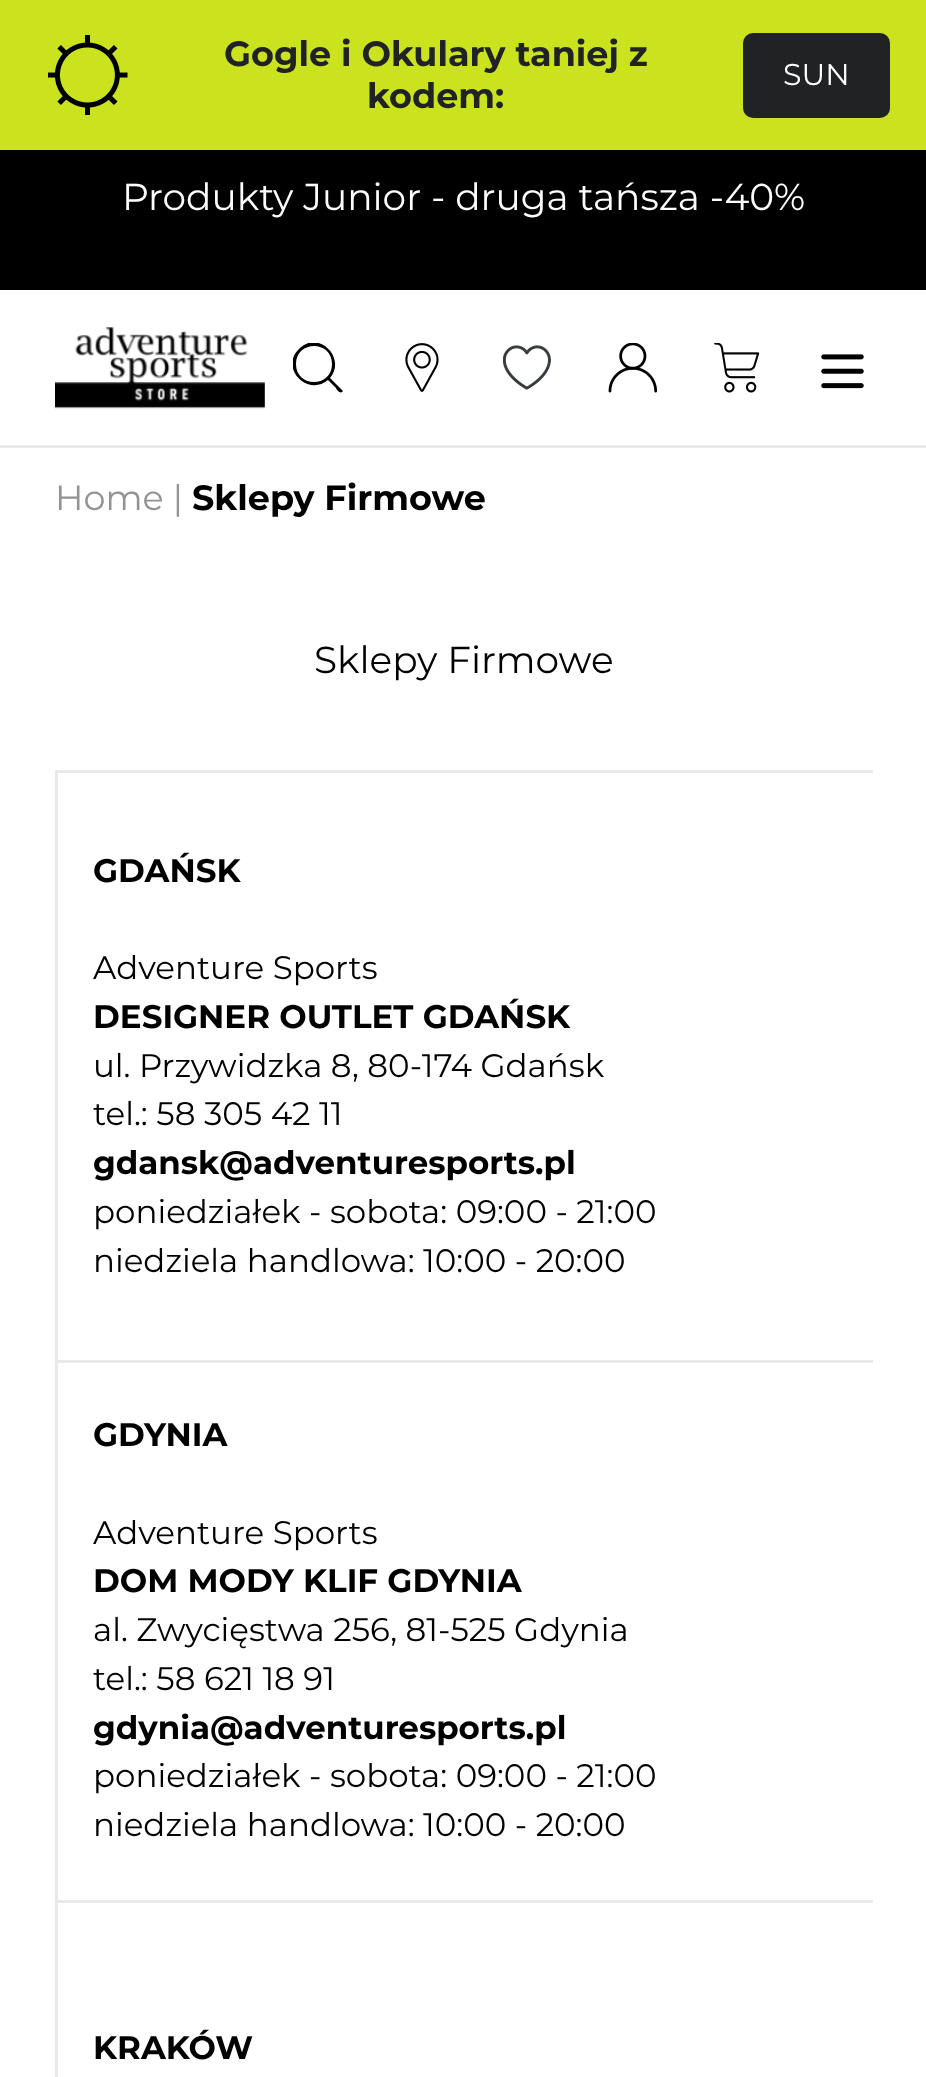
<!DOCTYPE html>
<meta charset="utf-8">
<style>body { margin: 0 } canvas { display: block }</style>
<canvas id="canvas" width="926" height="2077"></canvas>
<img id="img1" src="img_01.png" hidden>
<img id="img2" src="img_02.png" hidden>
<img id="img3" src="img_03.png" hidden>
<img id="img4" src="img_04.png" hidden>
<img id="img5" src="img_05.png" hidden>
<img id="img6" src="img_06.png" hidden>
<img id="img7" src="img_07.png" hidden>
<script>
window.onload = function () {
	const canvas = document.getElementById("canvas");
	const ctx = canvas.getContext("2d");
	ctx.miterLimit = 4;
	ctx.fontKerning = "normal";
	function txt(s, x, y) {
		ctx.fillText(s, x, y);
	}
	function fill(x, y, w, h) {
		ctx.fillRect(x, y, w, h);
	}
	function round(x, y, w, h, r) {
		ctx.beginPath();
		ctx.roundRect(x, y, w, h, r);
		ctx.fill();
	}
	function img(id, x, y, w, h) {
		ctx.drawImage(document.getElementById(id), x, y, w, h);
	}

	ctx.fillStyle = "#FFFFFF";
	fill(0, 0, 926, 2077);
	ctx.fillStyle = "#CAE31E";
	fill(0, 0, 926, 150);
	img("img1", 48, 35, 80, 80);
	ctx.fillStyle = "#202223";
	round(743, 33, 147, 85, 10);
	ctx.fillStyle = "#000000";
	fill(0, 150, 926, 140);
	ctx.fillStyle = "#E8E9EB";
	fill(0, 445, 926, 3);
	img("img2", 55, 327, 210, 82);
	ctx.save();
	ctx.beginPath();
	ctx.rect(293, 343, 50, 50);
	ctx.clip();
	ctx.fillStyle = "#000000";
	ctx.beginPath();
	ctx.moveTo(342, 390);
	ctx.lineTo(330, 378);
	ctx.bezierCurveTo(347, 358, 318, 329, 299, 349);
	ctx.bezierCurveTo(279, 368, 308, 397, 328, 380);
	ctx.lineTo(336, 388);
	ctx.bezierCurveTo(336, 389, 340, 394, 342, 392);
	ctx.bezierCurveTo(343, 391, 343, 391, 342, 390);
	ctx.closePath();
	ctx.moveTo(296, 364);
	ctx.bezierCurveTo(296, 340, 332, 340, 332, 364);
	ctx.bezierCurveTo(332, 388, 296, 388, 296, 364);
	ctx.closePath();
	ctx.fill();
	ctx.restore();
	img("img3", 405, 343, 34, 49);
	img("img4", 503, 345, 48, 45);
	img("img5", 608, 343, 49, 50);
	img("img6", 714, 343, 46, 50);
	img("img7", 821, 354, 43, 35);
	fill(55, 770, 818, 3);
	fill(55, 1360, 818, 3);
	fill(55, 1900, 818, 3);
	fill(55, 1900, 3, 177);
	fill(55, 1360, 3, 543);
	fill(55, 770, 3, 593);
	ctx.font = "bold 35px Montserrat";
	ctx.fillStyle = "#202223";
	txt("Gogle i Okulary taniej z", 224, 66);
	txt("kodem:", 367, 108);
	ctx.font = "30px Montserrat";
	ctx.fillStyle = "#FEFEFE";
	txt("SUN", 783, 85);
	ctx.font = "37.5px Montserrat";
	txt("Produkty Junior - druga tańsza -40%", 122, 210);
	ctx.font = "35px Montserrat";
	ctx.fillStyle = "#949292";
	txt("Home |", 55, 510);
	ctx.font = "bold 35px Montserrat";
	ctx.fillStyle = "#000000";
	txt("Sklepy Firmowe", 192, 510);
	ctx.font = "37.5px Montserrat";
	txt("Sklepy Firmowe", 314, 673);
	ctx.font = "bold 32.5px Montserrat";
	txt("GDAŃSK", 93, 882);
	ctx.font = "32.5px Montserrat";
	txt("Adventure Sports", 93, 979);
	ctx.font = "bold 32.5px Montserrat";
	txt("DESIGNER OUTLET GDAŃSK", 93, 1028);
	ctx.font = "32.5px Montserrat";
	txt("ul. Przywidzka 8, 80-174 Gdańsk", 93, 1077);
	txt("tel.: 58 305 42 11", 93, 1125);
	ctx.font = "bold 32.5px Montserrat";
	txt("gdansk@adventuresports.pl", 93, 1174);
	ctx.font = "32.5px Montserrat";
	txt("poniedziałek - sobota: 09:00 - 21:00", 93, 1223);
	txt("niedziela handlowa: 10:00 - 20:00", 93, 1272);
	ctx.font = "bold 32.5px Montserrat";
	txt("GDYNIA", 93, 1446);
	ctx.font = "32.5px Montserrat";
	txt("Adventure Sports", 93, 1544);
	ctx.font = "bold 32.5px Montserrat";
	txt("DOM MODY KLIF GDYNIA", 93, 1592);
	ctx.font = "32.5px Montserrat";
	txt("al. Zwycięstwa 256, 81-525 Gdynia", 93, 1641);
	txt("tel.: 58 621 18 91", 93, 1690);
	ctx.font = "bold 32.5px Montserrat";
	txt("gdynia@adventuresports.pl", 93, 1739);
	ctx.font = "32.5px Montserrat";
	txt("poniedziałek - sobota: 09:00 - 21:00", 93, 1787);
	txt("niedziela handlowa: 10:00 - 20:00", 93, 1836);
	ctx.font = "bold 32.5px Montserrat";
	txt("KRAKÓW", 93, 2059);
};
</script>
